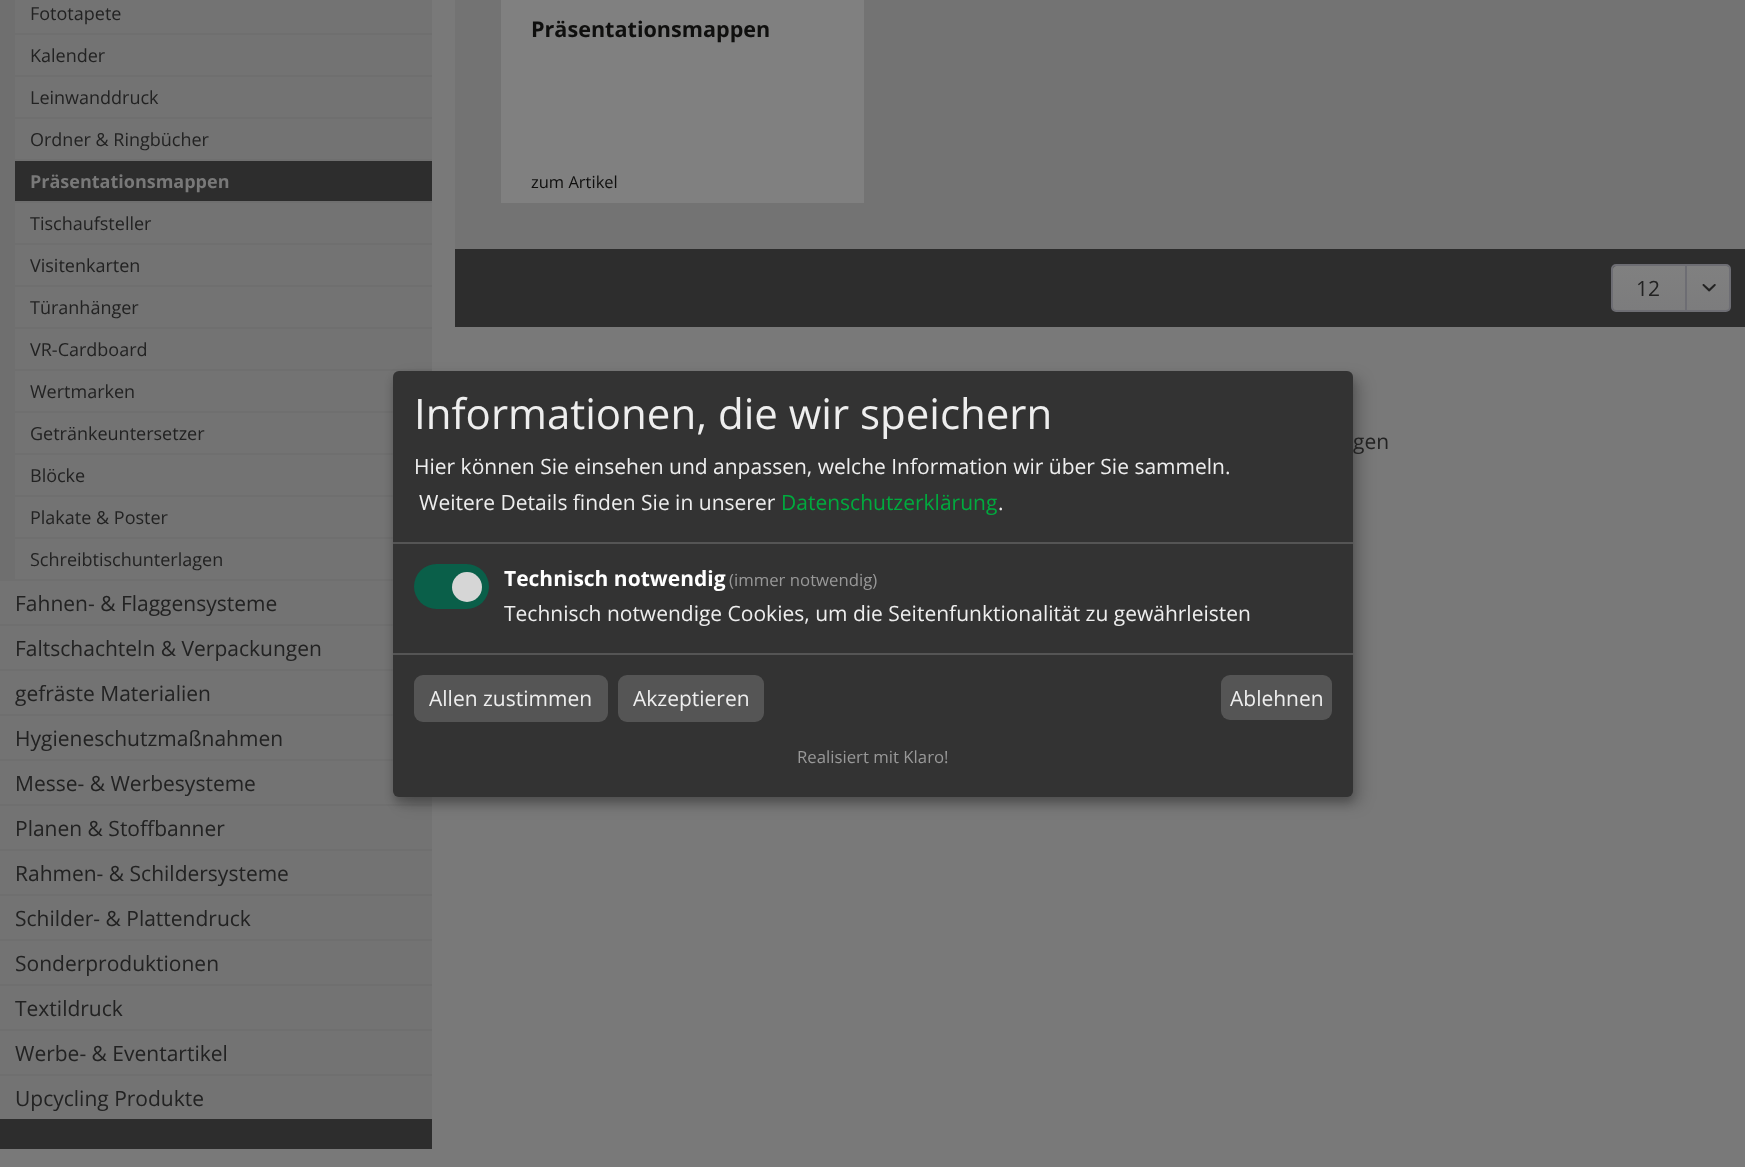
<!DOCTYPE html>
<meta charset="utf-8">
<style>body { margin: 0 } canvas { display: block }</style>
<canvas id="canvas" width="1745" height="1167"></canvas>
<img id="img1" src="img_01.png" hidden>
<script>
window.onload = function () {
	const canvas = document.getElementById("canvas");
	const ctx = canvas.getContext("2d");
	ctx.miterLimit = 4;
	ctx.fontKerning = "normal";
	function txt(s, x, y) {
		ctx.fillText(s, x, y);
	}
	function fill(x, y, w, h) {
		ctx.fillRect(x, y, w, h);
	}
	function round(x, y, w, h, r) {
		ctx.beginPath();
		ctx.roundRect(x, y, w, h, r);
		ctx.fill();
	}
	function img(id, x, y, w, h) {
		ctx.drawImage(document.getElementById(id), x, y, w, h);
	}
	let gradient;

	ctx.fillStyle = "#797979";
	fill(0, 0, 1745, 1167);
	ctx.fillStyle = "#2D2D2D";
	fill(0, 1119, 432, 30);
	ctx.fillStyle = "#6F6F6F";
	fill(0, 0, 432, 1076);
	ctx.fillStyle = "#737373";
	fill(15, 0, 417, 33);
	fill(15, 35, 417, 40);
	fill(15, 77, 417, 40);
	fill(15, 119, 417, 40);
	ctx.fillStyle = "#2D2D2D";
	fill(15, 161, 417, 40);
	ctx.fillStyle = "#737373";
	fill(15, 203, 417, 40);
	fill(15, 245, 417, 40);
	fill(15, 287, 417, 40);
	fill(15, 329, 417, 40);
	fill(15, 371, 384, 40);
	fill(15, 413, 378, 40);
	fill(15, 455, 378, 40);
	fill(15, 497, 378, 40);
	fill(15, 539, 378, 40);
	fill(0, 581, 393, 43);
	fill(0, 626, 393, 43);
	fill(0, 671, 393, 43);
	fill(0, 716, 393, 43);
	fill(0, 761, 432, 43);
	fill(0, 806, 432, 43);
	fill(0, 851, 432, 43);
	fill(0, 896, 432, 43);
	fill(0, 941, 432, 43);
	fill(0, 986, 432, 43);
	fill(0, 1031, 432, 43);
	fill(0, 1076, 432, 43);
	fill(455, 0, 1290, 249);
	ctx.fillStyle = "#808080";
	fill(501, 0, 363, 203);
	ctx.fillStyle = "#2D2D2D";
	fill(455, 249, 1290, 78);
	gradient = ctx.createLinearGradient(1671, 266, 1671, 311);
	gradient.addColorStop(0, "#808080");
	gradient.addColorStop(1, "#7C7C7D");
	ctx.fillStyle = gradient;
	round(1613, 266, 117, 45, 3);
	ctx.beginPath();
	ctx.roundRect(1612, 265, 118, 46, 4);
	ctx.strokeStyle = "#6D6D73";
	ctx.lineWidth = 2;
	ctx.stroke();
	ctx.fillStyle = "#6D6D73";
	fill(1685, 266, 2, 46);
	img("img1", 1702, 284, 14, 8);
	ctx.fillStyle = "rgba(0, 0, 0, 0.19)";
	ctx.filter = "blur(7.5px)";
	ctx.beginPath();
	ctx.roundRect(401, 378, 960, 426, 6);
	ctx.fill();
	ctx.filter = "none";
	ctx.fillStyle = "rgba(0, 0, 0, 0.2)";
	ctx.filter = "blur(4.5px)";
	ctx.beginPath();
	ctx.roundRect(393, 377, 960, 426, 6);
	ctx.fill();
	ctx.filter = "none";
	ctx.fillStyle = "#333333";
	round(393, 371, 960, 426, 6);
	ctx.fillStyle = "#555555";
	fill(393, 542, 960, 2);
	ctx.fillStyle = "#0A5F49";
	round(414, 564, 75, 45, 22.5);
	ctx.fillStyle = "#D6D6D6";
	ctx.beginPath();
	ctx.arc(467, 587, 15, 0, Math.PI * 2);
	ctx.fill();
	ctx.fillStyle = "#555555";
	fill(393, 653, 960, 2);
	round(414, 675, 194, 47, 9);
	round(618, 675, 146, 47, 9);
	round(1221, 675, 111, 45, 9);
	ctx.font = "18px Open Sans";
	ctx.fillStyle = "#222222";
	txt("Fototapete", 30, 20);
	txt("Kalender", 30, 62);
	txt("Leinwanddruck", 30, 104);
	txt("Ordner & Ringbücher", 30, 146);
	ctx.font = "bold 18px Open Sans";
	ctx.fillStyle = "#797979";
	txt("Präsentationsmappen", 30, 188);
	ctx.font = "18px Open Sans";
	ctx.fillStyle = "#222222";
	txt("Tischaufsteller", 30, 230);
	txt("Visitenkarten", 30, 272);
	txt("Türanhänger", 30, 314);
	txt("VR-Cardboard", 30, 356);
	txt("Wertmarken", 30, 398);
	txt("Getränkeuntersetzer", 30, 440);
	txt("Blöcke", 30, 482);
	txt("Plakate & Poster", 30, 524);
	txt("Schreibtischunterlagen", 30, 566);
	ctx.font = "21px Open Sans";
	txt("Fahnen- & Flaggensysteme", 15, 611);
	txt("Faltschachteln & Verpackungen", 15, 656);
	txt("gefräste Materialien", 15, 701);
	txt("Hygieneschutzmaßnahmen", 15, 746);
	txt("Messe- & Werbesysteme", 15, 791);
	txt("Planen & Stoffbanner", 15, 836);
	txt("Rahmen- & Schildersysteme", 15, 881);
	txt("Schilder- & Plattendruck", 15, 926);
	txt("Sonderproduktionen", 15, 971);
	txt("Textildruck", 15, 1016);
	txt("Werbe- & Eventartikel", 15, 1061);
	txt("Upcycling Produkte", 15, 1106);
	ctx.font = "bold 21.6px Open Sans";
	ctx.fillStyle = "#0F0F0E";
	txt("Präsentationsmappen", 531, 37);
	ctx.font = "16.5px Open Sans";
	txt("zum Artikel", 531, 188);
	ctx.font = "21px Open Sans";
	ctx.fillStyle = "#222222";
	txt("12", 1636, 296);
	txt("gen", 1353, 449);
	ctx.font = "42px Open Sans";
	ctx.fillStyle = "#EEEEEE";
	txt("Informationen, die wir speichern", 414, 429);
	ctx.font = "21px Open Sans";
	txt("Hier können Sie einsehen und anpassen, welche Information wir über Sie sammeln.", 414, 474);
	txt("Weitere Details finden Sie in unserer", 419, 510);
	ctx.fillStyle = "#00AA3E";
	txt("Datenschutzerklärung", 781, 510);
	ctx.fillStyle = "#EEEEEE";
	txt(".", 998, 510);
	ctx.font = "bold 21px Open Sans";
	ctx.fillStyle = "#FFFFFF";
	txt("Technisch notwendig", 504, 586);
	ctx.font = "16.75px Open Sans";
	ctx.fillStyle = "#999999";
	txt("(immer notwendig)", 729, 586);
	ctx.font = "21px Open Sans";
	ctx.fillStyle = "#EEEEEE";
	txt("Technisch notwendige Cookies, um die Seitenfunktionalität zu gewährleisten", 504, 621);
	txt("Allen zustimmen", 429, 706);
	txt("Akzeptieren", 633, 706);
	txt("Ablehnen", 1230, 706);
	ctx.font = "16.75px Open Sans";
	ctx.fillStyle = "#999999";
	txt("Realisiert mit Klaro!", 797, 763);
};
</script>
